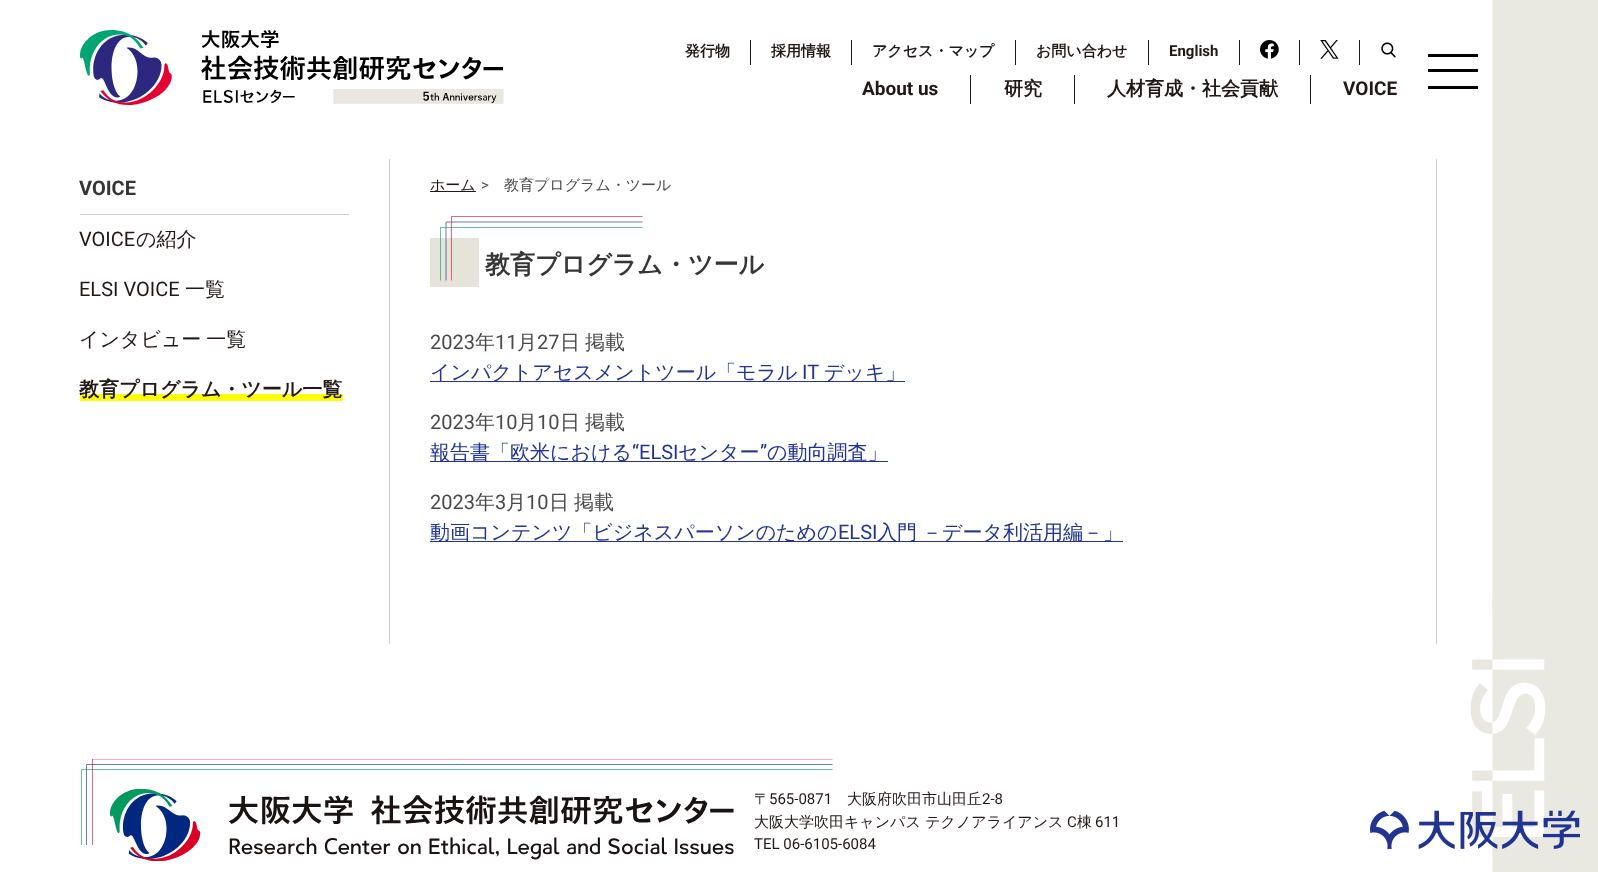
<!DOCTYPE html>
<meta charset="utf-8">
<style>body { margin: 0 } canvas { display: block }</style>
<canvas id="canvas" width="1598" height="872"></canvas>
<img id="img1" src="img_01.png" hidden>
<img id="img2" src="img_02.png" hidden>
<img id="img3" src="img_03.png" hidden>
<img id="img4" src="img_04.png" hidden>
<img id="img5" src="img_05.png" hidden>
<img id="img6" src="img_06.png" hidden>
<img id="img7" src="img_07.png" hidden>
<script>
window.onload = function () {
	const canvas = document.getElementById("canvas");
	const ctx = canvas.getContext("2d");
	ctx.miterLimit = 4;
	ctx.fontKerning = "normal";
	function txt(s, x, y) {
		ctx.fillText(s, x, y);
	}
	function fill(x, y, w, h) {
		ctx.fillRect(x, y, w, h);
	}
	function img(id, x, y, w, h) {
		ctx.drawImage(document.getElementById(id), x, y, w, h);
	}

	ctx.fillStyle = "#FFFFFF";
	fill(0, 0, 1598, 872);
	img("img1", 1470, 0, 128, 872);
	img("img2", 80, 30, 424, 75);
	ctx.fillStyle = "#221815";
	fill(750, 40, 1, 25);
	fill(851, 40, 1, 25);
	fill(1015, 40, 1, 25);
	fill(1148, 40, 1, 25);
	fill(1239, 40, 1, 25);
	fill(1299, 40, 1, 25);
	img("img3", 1260, 40, 19, 19);
	fill(1359, 40, 1, 25);
	img("img4", 1320, 40, 19, 19);
	img("img5", 1381, 42, 15, 16);
	fill(970, 75, 1, 29);
	fill(1074, 75, 1, 29);
	fill(1310, 75, 1, 29);
	ctx.fillStyle = "#000000";
	fill(1428, 54, 50, 3);
	fill(1428, 69, 50, 3);
	fill(1428, 86, 50, 3);
	ctx.fillStyle = "#CCCCCC";
	fill(80, 214, 269, 1);
	ctx.fillStyle = "#FFFF00";
	fill(80, 394, 263, 7);
	ctx.fillStyle = "#CCCCCC";
	fill(1436, 159, 1, 485);
	fill(389, 159, 1, 485);
	ctx.fillStyle = "#221815";
	fill(430, 191, 46, 1);
	ctx.fillStyle = "#E6E3DA";
	fill(430, 238, 49, 49);
	ctx.beginPath();
	ctx.moveTo(446, 280.5);
	ctx.lineTo(446, 222);
	ctx.lineTo(642.5, 222);
	ctx.strokeStyle = "#002880";
	ctx.lineWidth = 0.6;
	ctx.stroke();
	ctx.beginPath();
	ctx.moveTo(642.5, 227.5);
	ctx.lineTo(440.5, 227.5);
	ctx.lineTo(440.5, 280.5);
	ctx.strokeStyle = "#00995E";
	ctx.stroke();
	ctx.beginPath();
	ctx.moveTo(642.5, 216.5);
	ctx.lineTo(451.5, 216.5);
	ctx.lineTo(451.5, 280.5);
	ctx.strokeStyle = "#DC0025";
	ctx.stroke();
	ctx.fillStyle = "#213491";
	fill(430, 381, 475, 1);
	fill(430, 461, 458, 1);
	fill(430, 541, 693, 1);
	ctx.beginPath();
	ctx.moveTo(86.5, 845);
	ctx.lineTo(86.5, 764.5);
	ctx.lineTo(832.5, 764.5);
	ctx.strokeStyle = "#002880";
	ctx.stroke();
	ctx.beginPath();
	ctx.moveTo(832.5, 769.5);
	ctx.lineTo(81.5, 769.5);
	ctx.lineTo(81.5, 845);
	ctx.strokeStyle = "#00995E";
	ctx.stroke();
	ctx.save();
	ctx.beginPath();
	ctx.rect(80, 759, 754, 86);
	ctx.clip();
	ctx.beginPath();
	ctx.moveTo(832.5, 759);
	ctx.lineTo(92.5, 759);
	ctx.lineTo(92.5, 845);
	ctx.strokeStyle = "#DC0025";
	ctx.stroke();
	ctx.restore();
	img("img6", 110, 789, 624, 72);
	img("img7", 1370, 810, 210, 39);
	ctx.font = "bold 15px WenQuanYi Zen Hei";
	ctx.fillStyle = "#221815";
	txt("発行物", 685, 56);
	txt("採用情報", 771, 56);
	txt("アクセス・マップ", 872, 56);
	txt("お問い合わせ", 1036, 56);
	ctx.font = "bold 15px Roboto";
	txt("English", 1169, 56);
	ctx.font = "bold 19px Roboto";
	txt("About us", 862, 95);
	ctx.font = "bold 19px WenQuanYi Zen Hei";
	txt("研究", 1004, 95);
	txt("人材育成・社会貢献", 1107, 95);
	ctx.font = "bold 19px Roboto";
	txt("VOICE", 1343, 95);
	ctx.font = "bold 20px Roboto";
	ctx.fillStyle = "#363636";
	txt("VOICE", 79, 195);
	ctx.font = "20px Roboto";
	ctx.fillStyle = "#221815";
	txt("VOICE", 79, 246);
	ctx.font = "500 20px WenQuanYi Zen Hei";
	txt("の紹介", 136, 246);
	ctx.font = "20px Roboto";
	txt("ELSI VOICE", 79, 296);
	ctx.font = "500 20px WenQuanYi Zen Hei";
	txt("一覧", 185, 296);
	ctx.wordSpacing = "-1px";
	txt("インタビュー 一覧", 79, 346);
	ctx.wordSpacing = "0px";
	ctx.font = "bold 20px WenQuanYi Zen Hei";
	txt("教育プログラム・ツール一覧", 79, 396);
	ctx.font = "500 15px WenQuanYi Zen Hei";
	txt("ホーム", 430, 190);
	ctx.font = "15px Roboto";
	ctx.fillStyle = "#4A4A4A";
	txt(">", 481, 190);
	ctx.font = "500 15px WenQuanYi Zen Hei";
	txt("教育プログラム・ツール", 504, 190);
	ctx.font = "bold 25px WenQuanYi Zen Hei";
	ctx.fillStyle = "#363636";
	txt("教育プログラム・ツール", 485, 273);
	ctx.font = "20px Roboto";
	ctx.fillStyle = "#4A4A4A";
	txt("2023", 430, 349);
	ctx.font = "500 20px WenQuanYi Zen Hei";
	txt("年", 475, 349);
	ctx.font = "20px Roboto";
	txt("11", 495, 349);
	ctx.font = "500 20px WenQuanYi Zen Hei";
	txt("月", 517, 349);
	ctx.font = "20px Roboto";
	txt("27", 537, 349);
	ctx.wordSpacing = "-1px";
	ctx.font = "500 20px WenQuanYi Zen Hei";
	txt("日 掲載", 560, 349);
	ctx.wordSpacing = "0px";
	ctx.fillStyle = "#213491";
	txt("インパクトアセスメントツール「モラル", 430, 379);
	ctx.font = "20px Roboto";
	txt("IT", 802, 379);
	ctx.font = "500 20px WenQuanYi Zen Hei";
	txt("デッキ」", 824, 379);
	ctx.font = "20px Roboto";
	ctx.fillStyle = "#4A4A4A";
	txt("2023", 430, 429);
	ctx.font = "500 20px WenQuanYi Zen Hei";
	txt("年", 475, 429);
	ctx.font = "20px Roboto";
	txt("10", 495, 429);
	ctx.font = "500 20px WenQuanYi Zen Hei";
	txt("月", 517, 429);
	ctx.font = "20px Roboto";
	txt("10", 537, 429);
	ctx.wordSpacing = "-1px";
	ctx.font = "500 20px WenQuanYi Zen Hei";
	txt("日 掲載", 560, 429);
	ctx.wordSpacing = "0px";
	ctx.fillStyle = "#213491";
	txt("報告書「欧米における", 430, 459);
	ctx.font = "20px Roboto";
	txt("“ELSI", 632, 459);
	ctx.font = "500 20px WenQuanYi Zen Hei";
	txt("センター", 678, 459);
	ctx.font = "20px Roboto";
	txt("”", 760, 459);
	ctx.font = "500 20px WenQuanYi Zen Hei";
	txt("の動向調査」", 767, 459);
	ctx.font = "20px Roboto";
	ctx.fillStyle = "#4A4A4A";
	txt("2023", 430, 509);
	ctx.font = "500 20px WenQuanYi Zen Hei";
	txt("年", 475, 509);
	ctx.font = "20px Roboto";
	txt("3", 495, 509);
	ctx.font = "500 20px WenQuanYi Zen Hei";
	txt("月", 506, 509);
	ctx.font = "20px Roboto";
	txt("10", 526, 509);
	ctx.wordSpacing = "-1px";
	ctx.font = "500 20px WenQuanYi Zen Hei";
	txt("日 掲載", 549, 509);
	ctx.wordSpacing = "0px";
	ctx.fillStyle = "#213491";
	txt("動画コンテンツ「ビジネスパーソンのための", 430, 539);
	ctx.font = "20px Roboto";
	txt("ELSI", 838, 539);
	ctx.wordSpacing = "-1px";
	ctx.font = "500 20px WenQuanYi Zen Hei";
	txt("入門 －データ利活用編－」", 877, 539);
	ctx.wordSpacing = "0px";
	ctx.font = "500 15px WenQuanYi Zen Hei";
	ctx.fillStyle = "#221815";
	txt("〒", 754, 804);
	ctx.font = "15px Roboto";
	txt("565-0871", 769, 804);
	ctx.font = "500 15px WenQuanYi Zen Hei";
	txt("大阪府吹田市山田丘", 847, 804);
	ctx.font = "15px Roboto";
	txt("2-8", 982, 804);
	ctx.font = "500 15px WenQuanYi Zen Hei";
	txt("大阪大学吹田キャンパス テクノアライアンス", 754, 827);
	ctx.font = "15px Roboto";
	txt("C", 1067, 827);
	ctx.font = "500 15px WenQuanYi Zen Hei";
	txt("棟", 1077, 827);
	ctx.font = "15px Roboto";
	txt("611", 1095, 827);
	txt("TEL 06-6105-6084", 754, 849);
};
</script>
